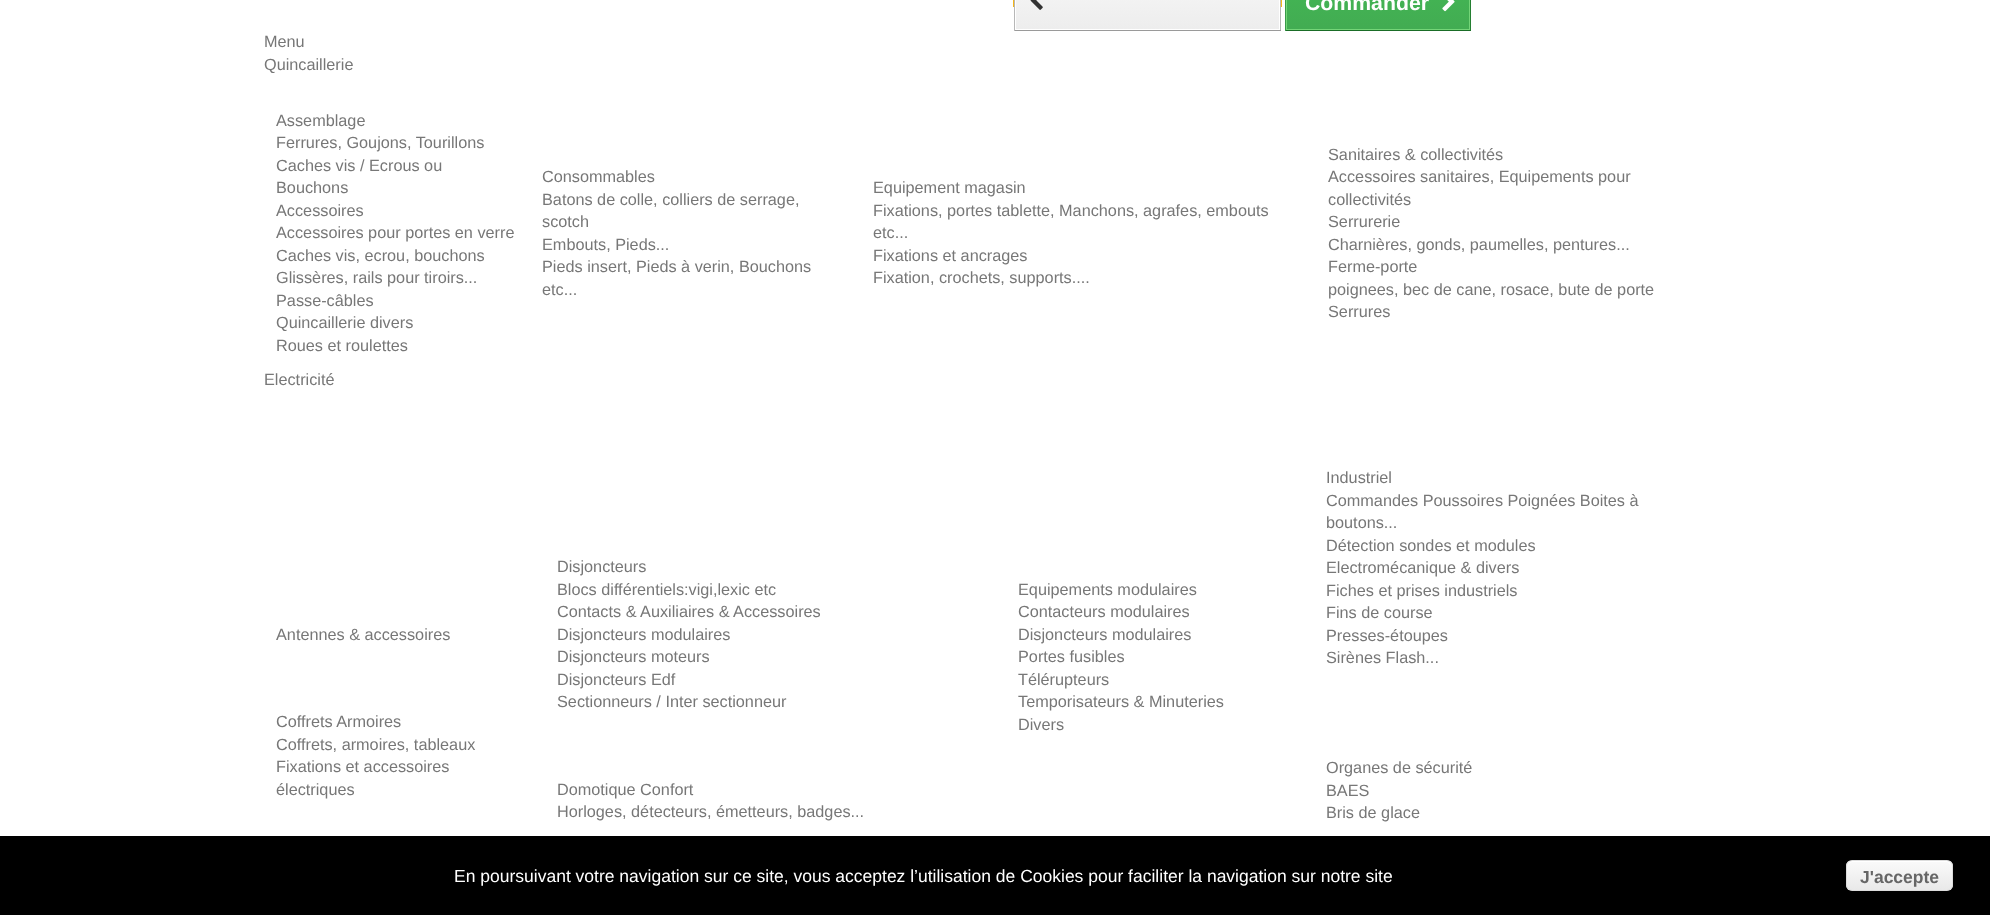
<!DOCTYPE html>
<meta charset="utf-8">
<style>body { margin: 0 } canvas { display: block }</style>
<canvas id="canvas" width="1990" height="915"></canvas>
<img id="img1" src="img_01.png" hidden>
<img id="img2" src="img_02.png" hidden>
<script>
window.onload = function () {
	const canvas = document.getElementById("canvas");
	const ctx = canvas.getContext("2d");
	ctx.miterLimit = 4;
	ctx.fontKerning = "normal";
	function txt(s, x, y) {
		ctx.fillText(s, x, y);
	}
	function fill(x, y, w, h) {
		ctx.fillRect(x, y, w, h);
	}
	function img(id, x, y, w, h) {
		ctx.drawImage(document.getElementById(id), x, y, w, h);
	}
	let gradient;

	ctx.fillStyle = "#FFFFFF";
	fill(0, 0, 1990, 915);
	ctx.fillStyle = "#F5B71B";
	fill(1013, 0, 269, 7);
	ctx.fillStyle = "#B7B7B7";
	fill(1280, 0, 1, 31);
	ctx.fillStyle = "#9A9A9A";
	fill(1014, 30, 267, 1);
	ctx.fillStyle = "#B7B7B7";
	fill(1014, 0, 1, 31);
	gradient = ctx.createLinearGradient(1148, -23, 1148, 29);
	gradient.addColorStop(0, "#F7F7F7");
	gradient.addColorStop(1, "#EDEDED");
	ctx.fillStyle = gradient;
	fill(1016, 0, 263, 29);
	ctx.strokeStyle = "#FFFFFF";
	ctx.strokeRect(1015.5, -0.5, 264, 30);
	img("img1", 1030, 0, 13, 10);
	gradient = ctx.createLinearGradient(1378, -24, 1378, 30);
	gradient.addColorStop(0, "#43B754");
	gradient.addColorStop(1, "#42AC52");
	ctx.fillStyle = gradient;
	fill(1287, 0, 182, 29);
	ctx.fillStyle = "#247F32";
	fill(1470, 0, 1, 31);
	ctx.fillStyle = "#1A6D27";
	fill(1285, 30, 186, 1);
	ctx.fillStyle = "#399A49";
	fill(1285, 0, 1, 31);
	ctx.strokeStyle = "#74D578";
	ctx.strokeRect(1286.5, -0.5, 183, 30);
	img("img2", 1442, 0, 13, 12);
	ctx.fillStyle = "#000000";
	fill(0, 836, 1990, 79);
	ctx.save();
	ctx.beginPath();
	ctx.roundRect(1846, 860, 107, 31, 6);
	ctx.clip();
	gradient = ctx.createLinearGradient(1848, 861, 1848, 890);
	gradient.addColorStop(0.05, "#F9F9F9");
	gradient.addColorStop(1, "#E9E9E9");
	ctx.fillStyle = gradient;
	fill(1846, 861, 107, 29);
	ctx.restore();
	ctx.fillStyle = "#FFFFFF";
	ctx.beginPath();
	ctx.moveTo(1852, 862);
	ctx.lineTo(1946, 862);
	ctx.bezierCurveTo(1949, 862, 1951, 865, 1951, 868);
	ctx.bezierCurveTo(1951, 857, 1939, 861, 1930, 861);
	ctx.lineTo(1868, 861);
	ctx.bezierCurveTo(1860, 861, 1848, 857, 1848, 868);
	ctx.bezierCurveTo(1848, 865, 1850, 862, 1852, 862);
	ctx.closePath();
	ctx.fill();
	ctx.beginPath();
	ctx.roundRect(1846.5, 860.5, 106, 30, 5.5);
	ctx.strokeStyle = "#DCDCDC";
	ctx.stroke();
	ctx.font = "bold 21.25px Liberation Sans";
	txt("Commander", 1305, 10);
	ctx.font = "16.25px Liberation Sans";
	ctx.fillStyle = "#777777";
	txt("Menu", 264, 47);
	txt("Quincaillerie", 264, 70);
	txt("Assemblage", 276, 126);
	txt("Ferrures, Goujons, Tourillons", 276, 148);
	txt("Caches vis / Ecrous ou", 276, 171);
	txt("Bouchons", 276, 193);
	txt("Accessoires", 276, 216);
	txt("Accessoires pour portes en verre", 276, 238);
	txt("Caches vis, ecrou, bouchons", 276, 261);
	txt("Glissères, rails pour tiroirs...", 276, 283);
	txt("Passe-câbles", 276, 306);
	txt("Quincaillerie divers", 276, 328);
	txt("Roues et roulettes", 276, 351);
	txt("Consommables", 542, 182);
	txt("Batons de colle, colliers de serrage,", 542, 205);
	txt("scotch", 542, 227);
	txt("Embouts, Pieds...", 542, 250);
	txt("Pieds insert, Pieds à verin, Bouchons", 542, 272);
	txt("etc...", 542, 295);
	txt("Equipement magasin", 873, 193);
	txt("Fixations, portes tablette, Manchons, agrafes, embouts", 873, 216);
	txt("etc...", 873, 238);
	txt("Fixations et ancrages", 873, 261);
	txt("Fixation, crochets, supports....", 873, 283);
	txt("Sanitaires & collectivités", 1328, 160);
	txt("Accessoires sanitaires, Equipements pour", 1328, 182);
	txt("collectivités", 1328, 205);
	txt("Serrurerie", 1328, 227);
	txt("Charnières, gonds, paumelles, pentures...", 1328, 250);
	txt("Ferme-porte", 1328, 272);
	txt("poignees, bec de cane, rosace, bute de porte", 1328, 295);
	txt("Serrures", 1328, 317);
	txt("Electricité", 264, 385);
	txt("Antennes & accessoires", 276, 640);
	txt("Coffrets Armoires", 276, 727);
	txt("Coffrets, armoires, tableaux", 276, 750);
	txt("Fixations et accessoires", 276, 772);
	txt("électriques", 276, 795);
	txt("Disjoncteurs", 557, 572);
	txt("Blocs différentiels:vigi,lexic etc", 557, 595);
	txt("Contacts & Auxiliaires & Accessoires", 557, 617);
	txt("Disjoncteurs modulaires", 557, 640);
	txt("Disjoncteurs moteurs", 557, 662);
	txt("Disjoncteurs Edf", 557, 685);
	txt("Sectionneurs / Inter sectionneur", 557, 707);
	txt("Domotique Confort", 557, 795);
	txt("Horloges, détecteurs, émetteurs, badges...", 557, 817);
	txt("Equipements modulaires", 1018, 595);
	txt("Contacteurs modulaires", 1018, 617);
	txt("Disjoncteurs modulaires", 1018, 640);
	txt("Portes fusibles", 1018, 662);
	txt("Télérupteurs", 1018, 685);
	txt("Temporisateurs & Minuteries", 1018, 707);
	txt("Divers", 1018, 730);
	txt("Industriel", 1326, 483);
	txt("Commandes Poussoires Poignées Boites à", 1326, 506);
	txt("boutons...", 1326, 528);
	txt("Détection sondes et modules", 1326, 551);
	txt("Electromécanique & divers", 1326, 573);
	txt("Fiches et prises industriels", 1326, 596);
	txt("Fins de course", 1326, 618);
	txt("Presses-étoupes", 1326, 641);
	txt("Sirènes Flash...", 1326, 663);
	txt("Organes de sécurité", 1326, 773);
	txt("BAES", 1326, 796);
	txt("Bris de glace", 1326, 818);
	ctx.font = "17.5px Liberation Sans";
	ctx.fillStyle = "#FFFFFF";
	txt("En poursuivant votre navigation sur ce site, vous acceptez l’utilisation de Cookies pour faciliter la navigation sur notre site", 454, 882);
	ctx.font = "bold 17.5px Liberation Sans";
	ctx.fillStyle = "#666666";
	txt("J'accepte", 1860, 883);
};
</script>
